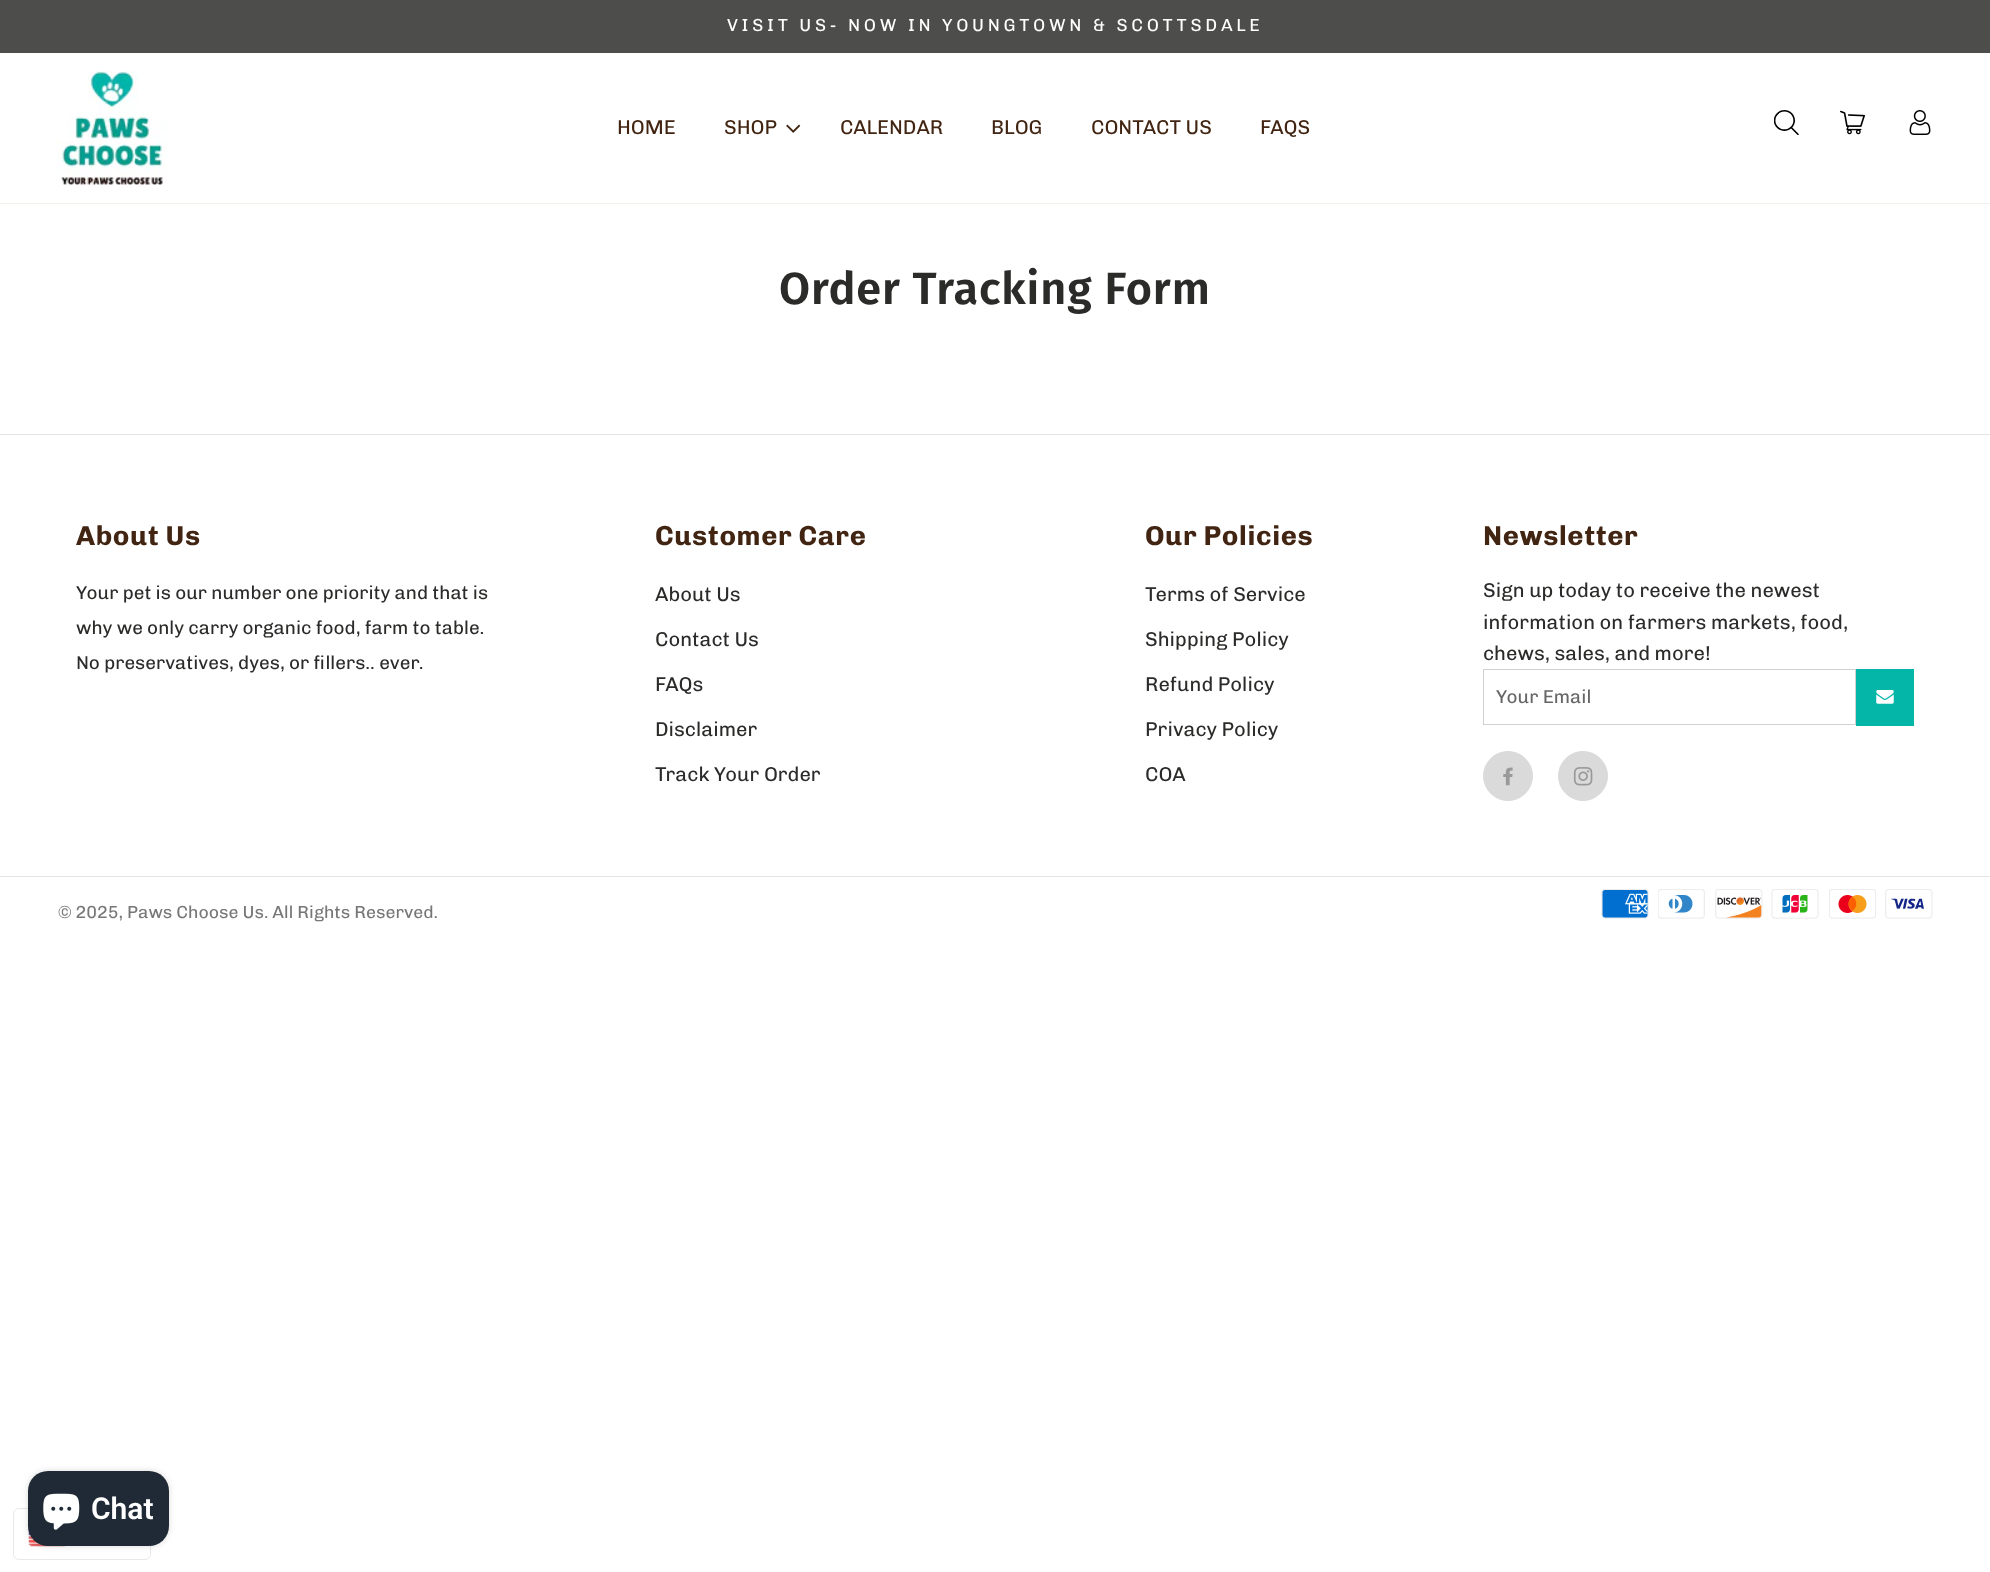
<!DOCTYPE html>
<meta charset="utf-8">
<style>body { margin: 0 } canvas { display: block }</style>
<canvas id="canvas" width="1990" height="1572"></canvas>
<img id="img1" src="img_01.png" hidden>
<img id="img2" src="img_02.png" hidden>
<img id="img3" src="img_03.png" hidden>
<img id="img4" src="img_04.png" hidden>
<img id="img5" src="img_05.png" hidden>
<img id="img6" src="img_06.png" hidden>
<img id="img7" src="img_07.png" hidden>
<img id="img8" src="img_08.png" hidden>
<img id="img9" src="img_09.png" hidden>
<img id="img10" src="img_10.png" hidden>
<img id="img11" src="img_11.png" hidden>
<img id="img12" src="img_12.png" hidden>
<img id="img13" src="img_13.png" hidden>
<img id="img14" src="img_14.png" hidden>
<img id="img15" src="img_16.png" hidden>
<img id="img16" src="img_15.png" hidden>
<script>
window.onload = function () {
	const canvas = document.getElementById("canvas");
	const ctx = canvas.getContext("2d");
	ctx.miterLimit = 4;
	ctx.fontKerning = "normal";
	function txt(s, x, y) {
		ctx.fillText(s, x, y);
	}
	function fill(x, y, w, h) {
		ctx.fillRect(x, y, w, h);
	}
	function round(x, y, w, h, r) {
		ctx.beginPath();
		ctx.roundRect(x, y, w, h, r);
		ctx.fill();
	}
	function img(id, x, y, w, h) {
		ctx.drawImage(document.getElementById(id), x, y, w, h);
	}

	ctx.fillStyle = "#FFFFFF";
	fill(0, 0, 1990, 1572);
	ctx.fillStyle = "#4D4D4C";
	fill(0, 0, 1990, 53);
	ctx.fillStyle = "#F1F0EB";
	fill(0, 203, 1990, 1);
	img("img1", 57, 71, 110, 114);
	img("img2", 786, 124, 15, 9);
	img("img3", 1774, 110, 25, 25);
	img("img4", 1840, 110, 25, 25);
	img("img5", 1909, 110, 22, 25);
	ctx.fillStyle = "#E3E4E2";
	fill(0, 434, 1990, 1);
	ctx.strokeStyle = "#D2D0CF";
	ctx.strokeRect(1483.5, 669.5, 372, 55);
	ctx.fillStyle = "#04B6A7";
	fill(1856, 669, 58, 57);
	img("img6", 1876, 690, 18, 14);
	ctx.fillStyle = "#DADADA";
	ctx.beginPath();
	ctx.arc(1508, 776, 24.5, 0, Math.PI * 2);
	ctx.fill();
	ctx.strokeStyle = "#DADADA";
	ctx.stroke();
	img("img7", 1503, 767, 10, 19);
	ctx.beginPath();
	ctx.arc(1583, 776, 24.5, 0, Math.PI * 2);
	ctx.fill();
	ctx.stroke();
	img("img8", 1573, 767, 20, 19);
	ctx.fillStyle = "#E3E4E2";
	fill(0, 876, 1990, 1);
	img("img9", 1601, 889, 48, 30);
	img("img10", 1658, 889, 47, 30);
	img("img11", 1715, 889, 48, 30);
	img("img12", 1771, 889, 48, 30);
	img("img13", 1829, 889, 47, 30);
	img("img14", 1885, 889, 48, 30);
	ctx.beginPath();
	ctx.roundRect(13.5, 1508.5, 137, 51, 5.5);
	ctx.strokeStyle = "#E8E8E8";
	ctx.stroke();
	img("img15", 28, 1526, 38, 21);
	ctx.fillStyle = "rgba(0, 0, 0, 0.15)";
	ctx.filter = "blur(3px)";
	ctx.beginPath();
	ctx.roundRect(28, 1471, 141, 75, 20);
	ctx.fill();
	ctx.filter = "none";
	ctx.fillStyle = "#202A36";
	round(28, 1471, 141, 75, 20);
	img("img16", 43, 1493, 37, 37);
	ctx.letterSpacing = "3.75px";
	ctx.font = "17.5px Chivo";
	ctx.fillStyle = "#FFFFFF";
	txt("VISIT US- NOW IN YOUNGTOWN & SCOTTSDALE", 727, 31);
	ctx.letterSpacing = "0px";
	ctx.font = "20px Chivo";
	ctx.fillStyle = "#412512";
	txt("HOME", 617, 134);
	txt("SHOP", 724, 134);
	txt("CALENDAR", 840, 134);
	txt("BLOG", 991, 134);
	txt("CONTACT US", 1091, 134);
	txt("FAQS", 1260, 134);
	ctx.letterSpacing = "0.9px";
	ctx.font = "600 45px Fira Sans";
	ctx.fillStyle = "#2B2B2A";
	txt("Order Tracking Form", 779, 304);
	ctx.letterSpacing = "0.6px";
	ctx.font = "bold 27.5px Chivo";
	ctx.fillStyle = "#412512";
	txt("About Us", 76, 545);
	ctx.letterSpacing = "0px";
	ctx.font = "18.75px Chivo";
	ctx.fillStyle = "#2B2B2A";
	txt("Your pet is our number one priority and that is", 76, 599);
	txt("why we only carry organic food, farm to table.", 76, 634);
	txt("No preservatives, dyes, or fillers.. ever.", 76, 669);
	ctx.letterSpacing = "0.6px";
	ctx.font = "bold 27.5px Chivo";
	ctx.fillStyle = "#412512";
	txt("Customer Care", 655, 545);
	ctx.letterSpacing = "0px";
	ctx.font = "20px Chivo";
	ctx.fillStyle = "#2B2B2A";
	txt("About Us", 655, 601);
	txt("Contact Us", 655, 646);
	txt("FAQs", 655, 691);
	txt("Disclaimer", 655, 736);
	txt("Track Your Order", 655, 781);
	ctx.letterSpacing = "0.6px";
	ctx.font = "bold 27.5px Chivo";
	ctx.fillStyle = "#412512";
	txt("Our Policies", 1145, 545);
	ctx.letterSpacing = "0px";
	ctx.font = "20px Chivo";
	ctx.fillStyle = "#2B2B2A";
	txt("Terms of Service", 1145, 601);
	txt("Shipping Policy", 1145, 646);
	txt("Refund Policy", 1145, 691);
	txt("Privacy Policy", 1145, 736);
	txt("COA", 1145, 781);
	ctx.letterSpacing = "0.6px";
	ctx.font = "bold 27.5px Chivo";
	ctx.fillStyle = "#412512";
	txt("Newsletter", 1483, 545);
	ctx.letterSpacing = "0px";
	ctx.font = "20px Chivo";
	ctx.fillStyle = "#2B2B2A";
	txt("Sign up today to receive the newest", 1483, 597);
	txt("information on farmers markets, food,", 1483, 629);
	txt("chews, sales, and more!", 1483, 660);
	ctx.font = "18.75px Chivo";
	ctx.fillStyle = "#666666";
	txt("Your Email", 1496, 703);
	ctx.font = "17.5px Chivo";
	ctx.fillStyle = "#777777";
	txt("© 2025, Paws Choose Us. All Rights Reserved.", 58, 918);
	ctx.font = "600 30px Roboto";
	ctx.fillStyle = "#FFFFFF";
	txt("Chat", 91, 1519);
};
</script>
